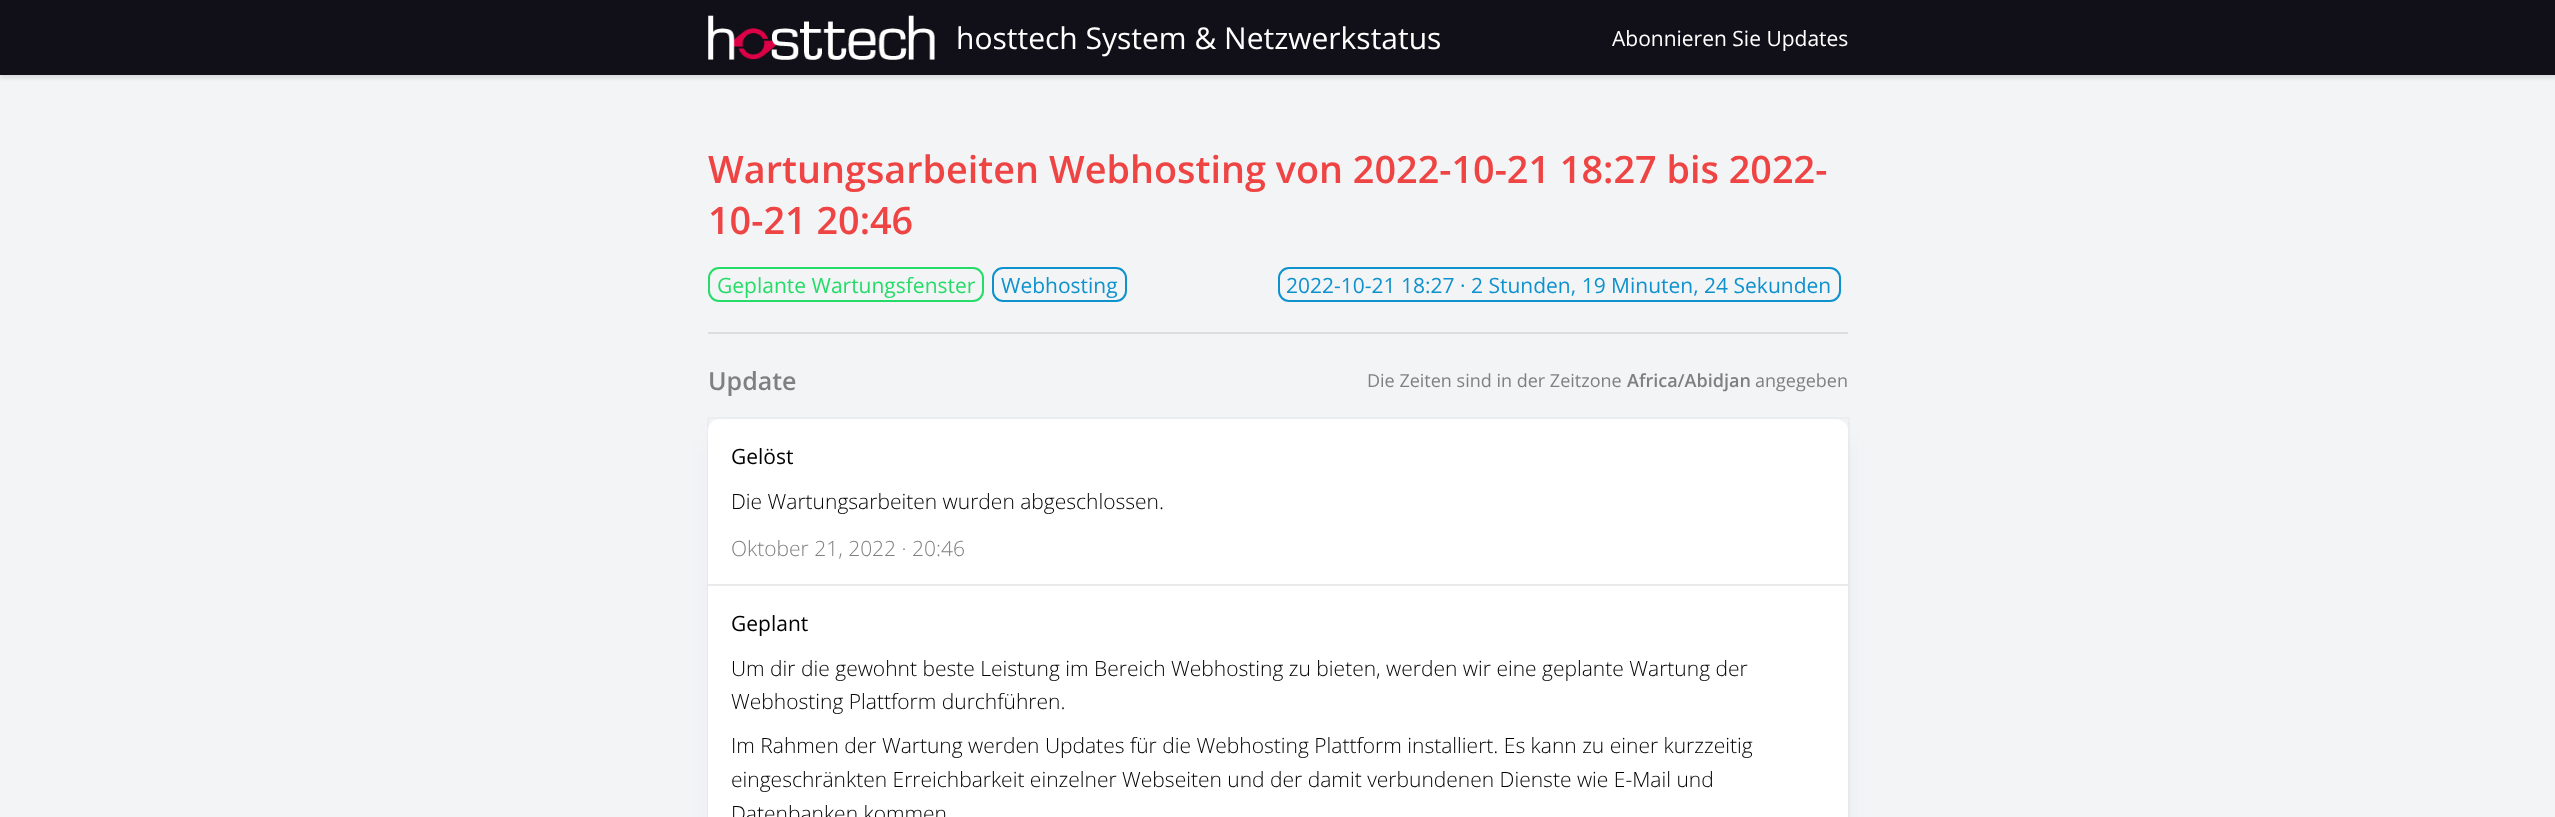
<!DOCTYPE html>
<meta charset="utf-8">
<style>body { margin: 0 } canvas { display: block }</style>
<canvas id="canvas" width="2555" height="817"></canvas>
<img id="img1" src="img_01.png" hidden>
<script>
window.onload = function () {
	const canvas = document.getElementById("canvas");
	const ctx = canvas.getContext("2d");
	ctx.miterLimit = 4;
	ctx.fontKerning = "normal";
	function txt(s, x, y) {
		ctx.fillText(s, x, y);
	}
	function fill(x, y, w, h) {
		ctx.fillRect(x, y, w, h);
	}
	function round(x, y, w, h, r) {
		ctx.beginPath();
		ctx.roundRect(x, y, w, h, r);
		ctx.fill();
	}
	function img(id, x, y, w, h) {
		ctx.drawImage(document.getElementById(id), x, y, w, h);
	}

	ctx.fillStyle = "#F3F4F6";
	fill(0, 0, 2555, 817);
	ctx.fillStyle = "rgba(0, 0, 0, 0.1)";
	ctx.filter = "blur(2px)";
	ctx.beginPath();
	ctx.rect(0, 3, 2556, 75);
	ctx.fill();
	ctx.filter = "none";
	ctx.fillStyle = "#111018";
	fill(0, 0, 2555, 75);
	img("img1", 708, 15, 227, 45);
	ctx.beginPath();
	ctx.roundRect(709, 268, 274, 33, 10);
	ctx.strokeStyle = "#26DC69";
	ctx.lineWidth = 2;
	ctx.stroke();
	ctx.beginPath();
	ctx.roundRect(993, 268, 133, 33, 10);
	ctx.strokeStyle = "#0D92CE";
	ctx.stroke();
	ctx.beginPath();
	ctx.roundRect(1279, 268, 561, 33, 10);
	ctx.stroke();
	ctx.fillStyle = "#DEDEDE";
	fill(708, 332, 1140, 2);
	ctx.fillStyle = "rgba(113, 117, 128, 0.1)";
	ctx.filter = "blur(11px)";
	ctx.beginPath();
	ctx.roundRect(713, 438, 1131, 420, 8);
	ctx.fill();
	ctx.filter = "none";
	ctx.strokeStyle = "rgba(113, 117, 128, 0.05)";
	ctx.strokeRect(708, 418, 1141, 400);
	ctx.fillStyle = "#FFFFFF";
	round(708, 419, 1140, 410, 12);
	ctx.fillStyle = "#EAEAEA";
	fill(708, 584, 1140, 2);
	ctx.font = "30px Open Sans";
	ctx.fillStyle = "#FFFFFF";
	txt("hosttech System & Netzwerkstatus", 956, 49);
	ctx.font = "21px Open Sans";
	txt("Abonnieren Sie Updates", 1612, 46);
	ctx.font = "600 37.8px Open Sans";
	ctx.fillStyle = "#EF4444";
	txt("Wartungsarbeiten Webhosting von 2022-10-21 18:27 bis 2022-", 708, 183);
	txt("10-21 20:46", 708, 234);
	ctx.font = "21px Open Sans";
	ctx.fillStyle = "#26DC69";
	txt("Geplante Wartungsfenster", 717, 293);
	ctx.fillStyle = "#0D92CE";
	txt("Webhosting", 1001, 293);
	txt("2022-10-21 18:27 · 2 Stunden, 19 Minuten, 24 Sekunden", 1286, 293);
	ctx.font = "600 25px Open Sans";
	ctx.fillStyle = "#808080";
	txt("Update", 708, 390);
	ctx.font = "18px Open Sans";
	txt("Die Zeiten sind in der Zeitzone", 1367, 387);
	ctx.font = "600 18px Open Sans";
	txt("Africa/Abidjan", 1627, 387);
	ctx.font = "18px Open Sans";
	txt("angegeben", 1755, 387);
	ctx.font = "21px Open Sans";
	ctx.fillStyle = "#000000";
	txt("Gelöst", 731, 464);
	ctx.font = "300 21px Open Sans";
	txt("Die Wartungsarbeiten wurden abgeschlossen.", 731, 509);
	ctx.fillStyle = "#808080";
	txt("Oktober 21, 2022 · 20:46", 731, 556);
	ctx.font = "21px Open Sans";
	ctx.fillStyle = "#000000";
	txt("Geplant", 731, 631);
	ctx.font = "300 21px Open Sans";
	txt("Um dir die gewohnt beste Leistung im Bereich Webhosting zu bieten, werden wir eine geplante Wartung der", 731, 676);
	txt("Webhosting Plattform durchführen.", 731, 709);
	txt("Im Rahmen der Wartung werden Updates für die Webhosting Plattform installiert. Es kann zu einer kurzzeitig", 731, 753);
	txt("eingeschränkten Erreichbarkeit einzelner Webseiten und der damit verbundenen Dienste wie E-Mail und", 731, 787);
	txt("Datenbanken kommen", 731, 821);
};
</script>
